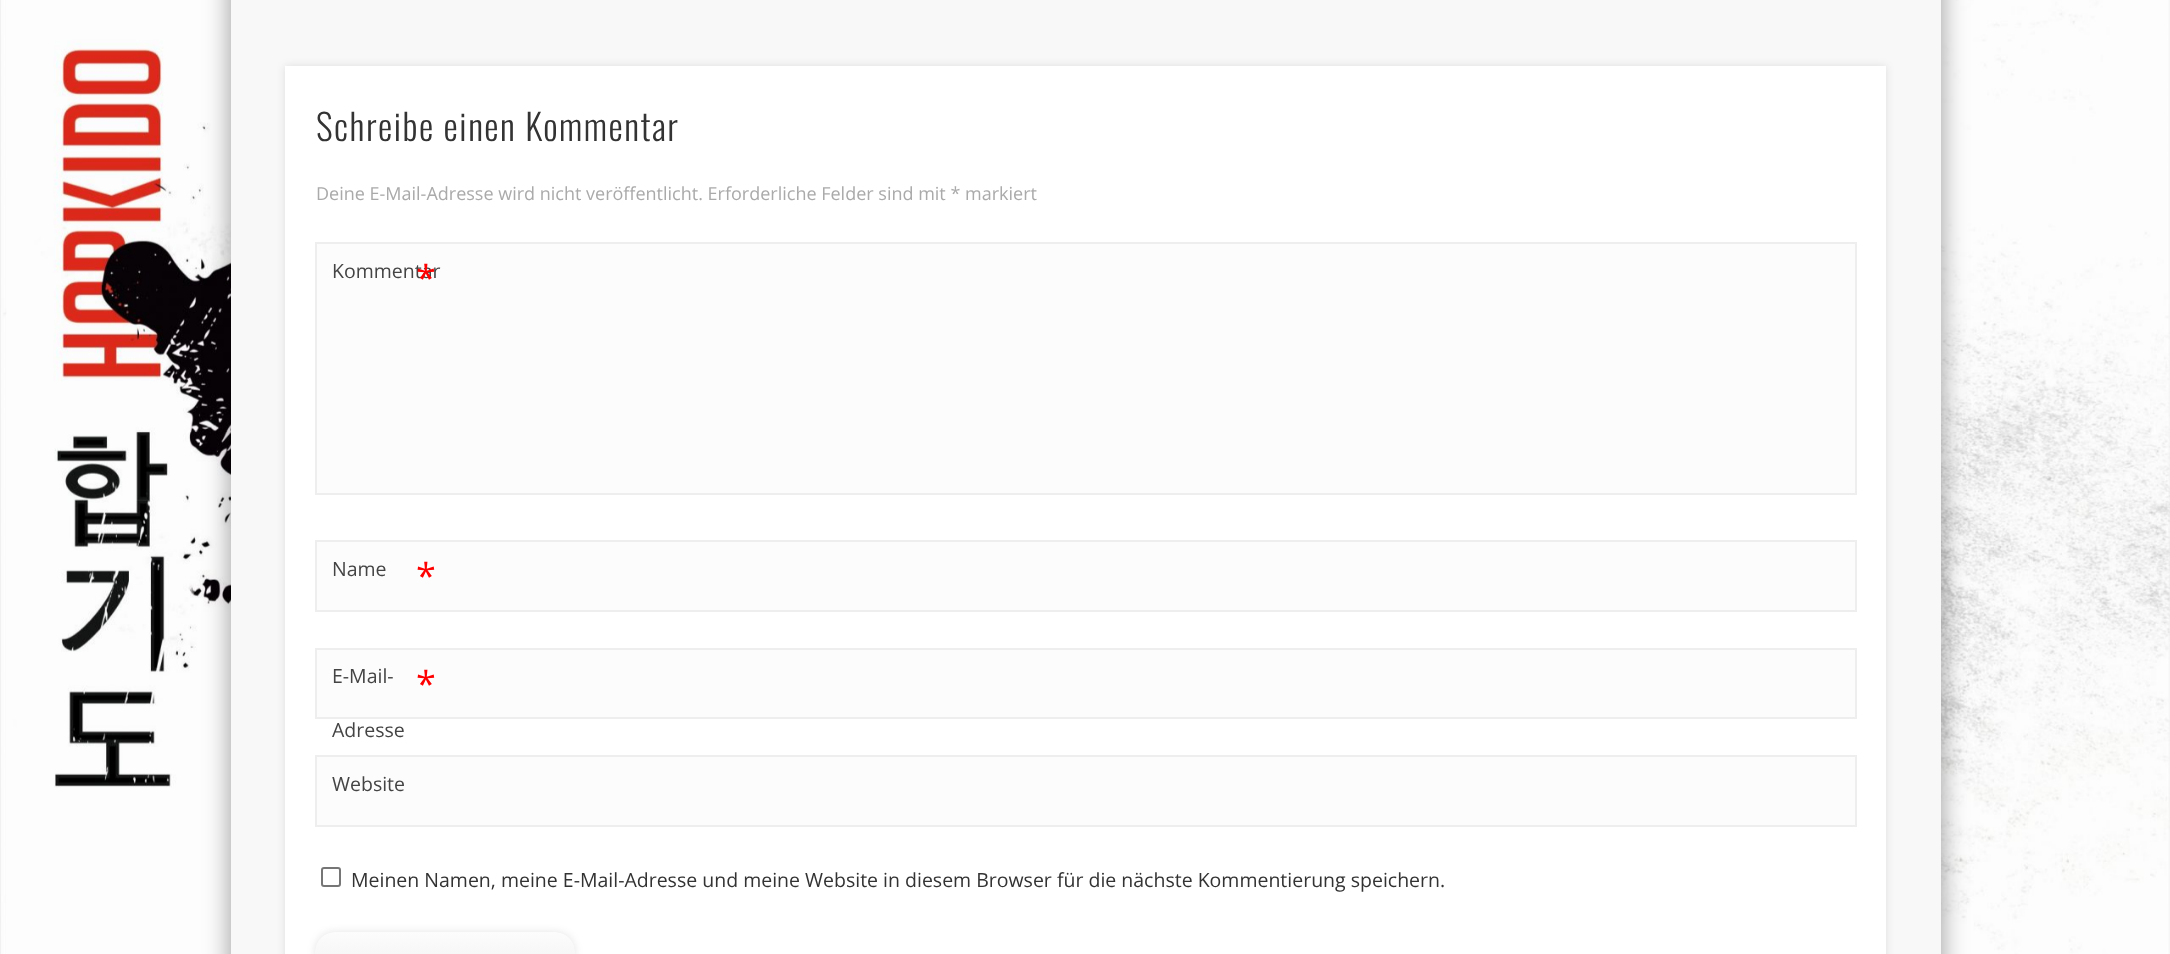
<!DOCTYPE html>
<meta charset="utf-8">
<style>body { margin: 0 } canvas { display: block }</style>
<canvas id="canvas" width="2170" height="954"></canvas>
<img id="img1" src="img_01.png" hidden>
<script>
window.onload = function () {
	const canvas = document.getElementById("canvas");
	const ctx = canvas.getContext("2d");
	ctx.miterLimit = 4;
	ctx.fontKerning = "normal";
	function txt(s, x, y) {
		ctx.fillText(s, x, y);
	}
	function fill(x, y, w, h) {
		ctx.fillRect(x, y, w, h);
	}
	function img(id, x, y, w, h) {
		ctx.drawImage(document.getElementById(id), x, y, w, h);
	}
	let gradient;

	ctx.fillStyle = "#FFFFFF";
	fill(0, 0, 2170, 954);
	img("img1", 0, 0, 2170, 954);
	ctx.fillStyle = "rgba(0, 0, 0, 0.4)";
	ctx.filter = "blur(13.5px)";
	ctx.beginPath();
	ctx.rect(231, -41, 1710, 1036);
	ctx.fill();
	ctx.filter = "none";
	ctx.fillStyle = "#F8F8F8";
	fill(231, 0, 1710, 954);
	ctx.fillStyle = "rgba(0, 0, 0, 0.1)";
	ctx.filter = "blur(4px)";
	ctx.beginPath();
	ctx.rect(285, 66, 1601, 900);
	ctx.fill();
	ctx.filter = "none";
	ctx.fillStyle = "#FFFFFF";
	fill(285, 66, 1601, 888);
	ctx.fillStyle = "#FCFCFC";
	ctx.beginPath();
	ctx.rect(316, 243, 1540, 251);
	ctx.fill();
	ctx.strokeStyle = "#EEEEEE";
	ctx.lineWidth = 2;
	ctx.stroke();
	ctx.beginPath();
	ctx.rect(316, 541, 1540, 70);
	ctx.fill();
	ctx.stroke();
	ctx.beginPath();
	ctx.rect(316, 649, 1540, 69);
	ctx.fill();
	ctx.stroke();
	ctx.beginPath();
	ctx.rect(316, 756, 1540, 70);
	ctx.fill();
	ctx.stroke();
	ctx.beginPath();
	ctx.roundRect(322, 868, 18, 18, 2);
	ctx.strokeStyle = "#767676";
	ctx.stroke();
	ctx.fillStyle = "rgba(0, 0, 0, 0.1)";
	ctx.filter = "blur(4px)";
	ctx.beginPath();
	ctx.roundRect(315, 932, 260, 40, 20);
	ctx.fill();
	ctx.filter = "none";
	ctx.save();
	ctx.beginPath();
	ctx.roundRect(315, 932, 260, 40, 20);
	ctx.clip();
	gradient = ctx.createLinearGradient(445, 932, 445, 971);
	gradient.addColorStop(0, "#FCFCFC");
	gradient.addColorStop(1, "#F3F3F3");
	ctx.fillStyle = gradient;
	ctx.beginPath();
	ctx.moveTo(335, 932);
	ctx.lineTo(555, 932);
	ctx.bezierCurveTo(566, 932, 575, 941, 575, 952);
	ctx.lineTo(575, 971);
	ctx.lineTo(315, 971);
	ctx.lineTo(315, 952);
	ctx.bezierCurveTo(315, 941, 324, 932, 335, 932);
	ctx.closePath();
	ctx.fill();
	ctx.restore();
	ctx.letterSpacing = "1.5px";
	ctx.font = "300 36px Oswald";
	ctx.fillStyle = "#333333";
	txt("Schreibe einen Kommentar", 316, 141);
	ctx.letterSpacing = "0px";
	ctx.font = "18px Open Sans";
	ctx.fillStyle = "#AAAAAA";
	txt("Deine E-Mail-Adresse wird nicht veröffentlicht. Erforderliche Felder sind mit * markiert", 316, 200);
	ctx.font = "19.5px Open Sans";
	ctx.fillStyle = "#444444";
	txt("Kommentar", 332, 278);
	ctx.font = "36px Open Sans";
	ctx.fillStyle = "#FF0000";
	txt("*", 416, 291);
	ctx.font = "19.5px Open Sans";
	ctx.fillStyle = "#444444";
	txt("Name", 332, 576);
	ctx.font = "36px Open Sans";
	ctx.fillStyle = "#FF0000";
	txt("*", 416, 589);
	ctx.font = "19.5px Open Sans";
	ctx.fillStyle = "#444444";
	txt("E-Mail-", 332, 683);
	ctx.font = "36px Open Sans";
	ctx.fillStyle = "#FF0000";
	txt("*", 416, 697);
	ctx.font = "19.5px Open Sans";
	ctx.fillStyle = "#444444";
	txt("Adresse", 332, 737);
	txt("Website", 332, 791);
	ctx.fillStyle = "#333333";
	txt("Meinen Namen, meine E-Mail-Adresse und meine Website in diesem Browser für die nächste Kommentierung speichern.", 351, 887);
};
</script>
